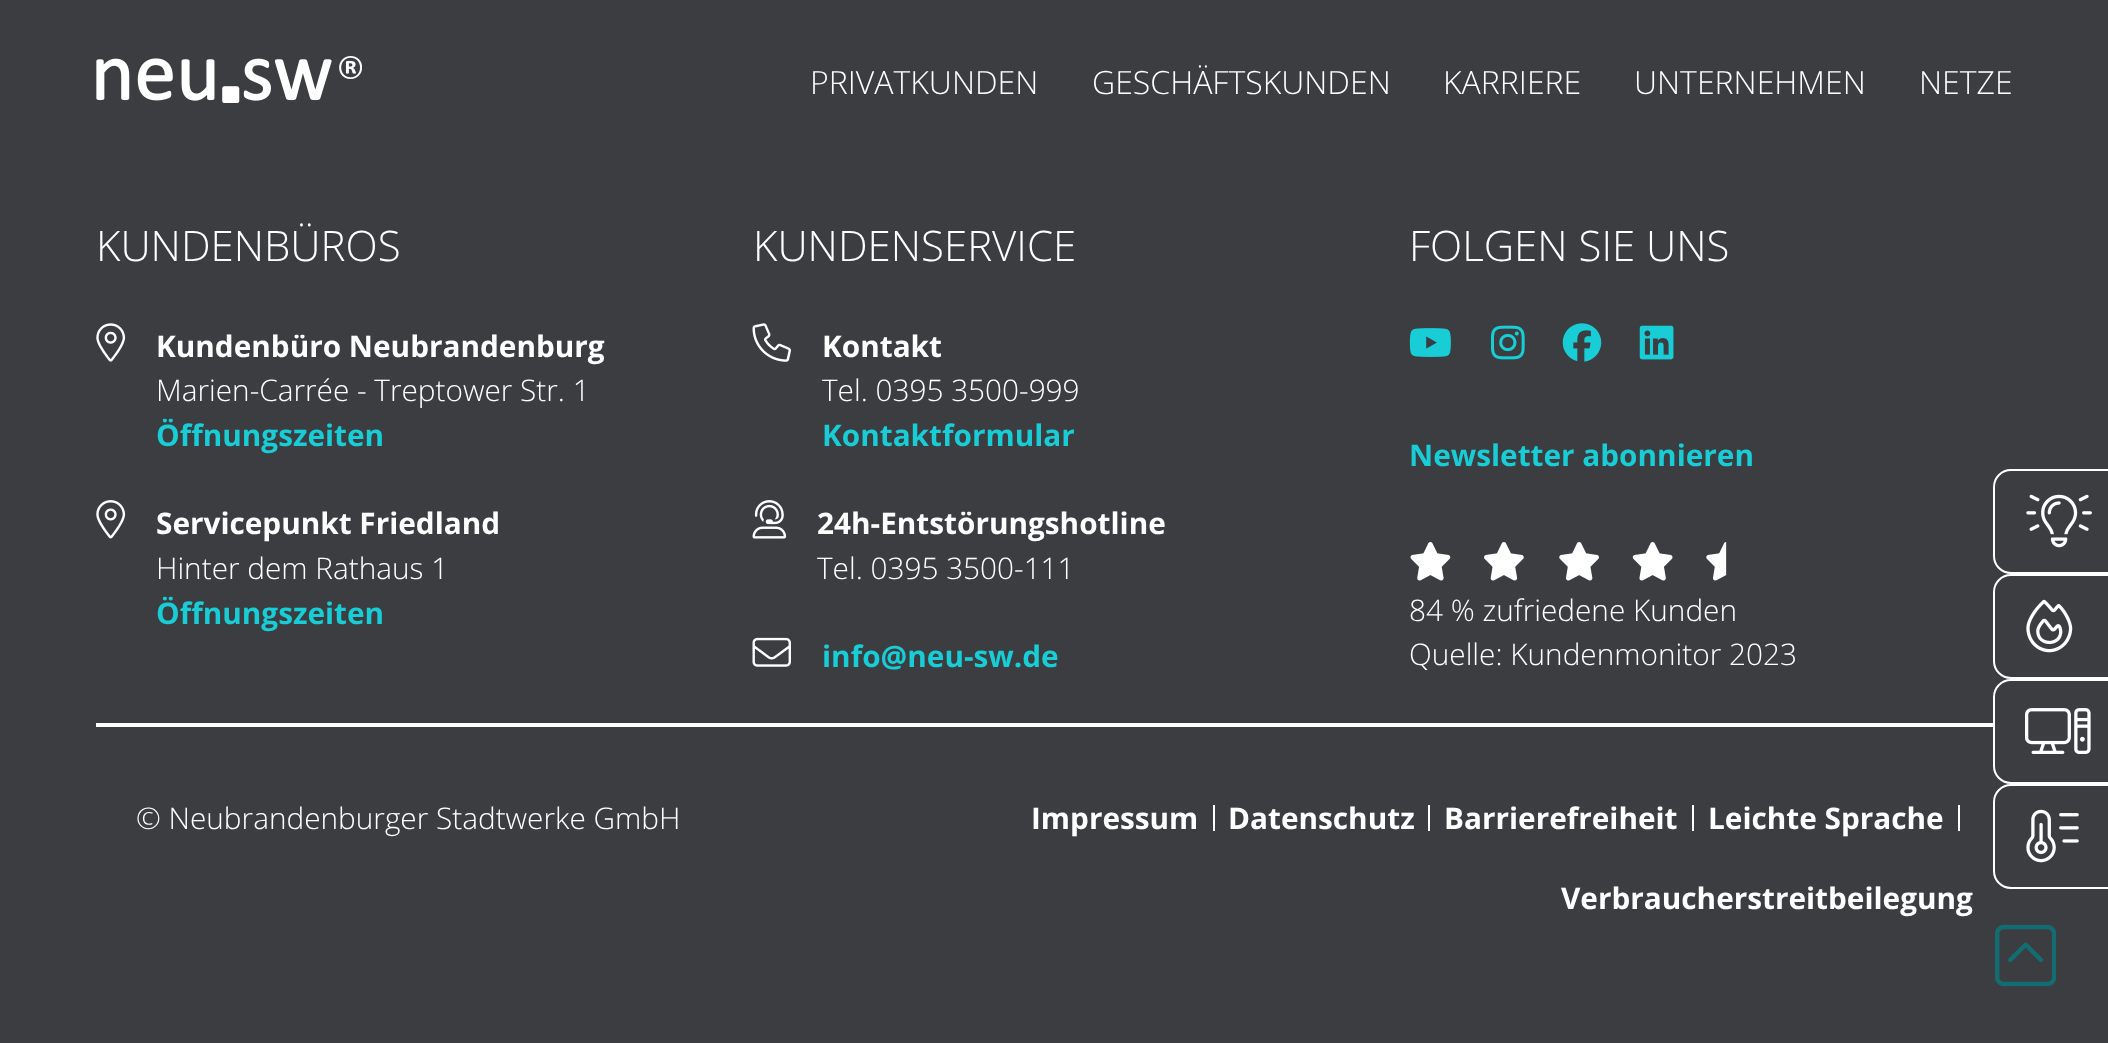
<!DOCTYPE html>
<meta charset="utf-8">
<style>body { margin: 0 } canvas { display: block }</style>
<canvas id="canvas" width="2108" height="1043"></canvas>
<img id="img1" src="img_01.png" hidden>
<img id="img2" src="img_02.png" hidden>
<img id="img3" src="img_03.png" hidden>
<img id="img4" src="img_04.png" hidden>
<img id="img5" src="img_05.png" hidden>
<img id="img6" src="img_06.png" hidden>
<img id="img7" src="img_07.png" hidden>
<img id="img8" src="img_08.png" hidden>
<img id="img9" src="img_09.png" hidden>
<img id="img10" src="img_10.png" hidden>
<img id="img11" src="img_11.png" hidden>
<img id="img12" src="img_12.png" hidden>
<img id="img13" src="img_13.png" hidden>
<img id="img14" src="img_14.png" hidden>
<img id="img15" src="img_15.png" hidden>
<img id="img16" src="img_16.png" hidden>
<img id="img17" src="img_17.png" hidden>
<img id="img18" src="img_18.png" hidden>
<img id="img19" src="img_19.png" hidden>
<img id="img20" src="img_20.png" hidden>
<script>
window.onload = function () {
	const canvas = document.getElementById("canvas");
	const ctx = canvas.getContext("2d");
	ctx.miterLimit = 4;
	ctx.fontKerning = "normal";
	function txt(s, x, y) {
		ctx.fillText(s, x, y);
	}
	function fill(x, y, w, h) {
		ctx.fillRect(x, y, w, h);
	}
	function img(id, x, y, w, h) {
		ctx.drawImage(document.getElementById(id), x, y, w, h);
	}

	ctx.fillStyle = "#3B3D41";
	fill(0, 0, 2108, 1043);
	img("img1", 96, 56, 266, 47);
	img("img2", 96, 323, 30, 39);
	img("img3", 96, 500, 30, 39);
	img("img4", 752, 323, 39, 39);
	img("img5", 752, 500, 35, 39);
	img("img6", 752, 637, 39, 30);
	img("img7", 1409, 328, 42, 29);
	img("img8", 1491, 325, 34, 35);
	img("img9", 1562, 323, 40, 39);
	img("img10", 1639, 325, 35, 35);
	img("img11", 1410, 542, 41, 39);
	img("img12", 1484, 542, 40, 39);
	img("img13", 1559, 542, 40, 39);
	img("img14", 1632, 542, 41, 39);
	img("img15", 1706, 542, 21, 39);
	ctx.fillStyle = "#FFFFFF";
	fill(96, 723, 1897, 4);
	fill(1213, 805, 2, 26);
	fill(1428, 805, 2, 26);
	fill(1692, 805, 2, 26);
	fill(1958, 805, 2, 26);
	ctx.beginPath();
	ctx.moveTo(2011, 470);
	ctx.lineTo(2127, 470);
	ctx.lineTo(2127, 573);
	ctx.lineTo(2011, 573);
	ctx.bezierCurveTo(2001.5, 573, 1994, 565.5, 1994, 556);
	ctx.lineTo(1994, 487);
	ctx.bezierCurveTo(1994, 477.5, 2001.5, 470, 2011, 470);
	ctx.closePath();
	ctx.strokeStyle = "#FFFFFF";
	ctx.lineWidth = 2;
	ctx.stroke();
	img("img16", 2026, 494, 66, 54);
	ctx.beginPath();
	ctx.moveTo(2011, 575);
	ctx.lineTo(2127, 575);
	ctx.lineTo(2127, 678);
	ctx.lineTo(2011, 678);
	ctx.bezierCurveTo(2001.5, 678, 1994, 670.5, 1994, 661);
	ctx.lineTo(1994, 592);
	ctx.bezierCurveTo(1994, 582.5, 2001.5, 575, 2011, 575);
	ctx.closePath();
	ctx.stroke();
	img("img17", 2026, 599, 47, 54);
	ctx.beginPath();
	ctx.moveTo(2011, 680);
	ctx.lineTo(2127, 680);
	ctx.lineTo(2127, 783);
	ctx.lineTo(2011, 783);
	ctx.bezierCurveTo(2001.5, 783, 1994, 775.5, 1994, 766);
	ctx.lineTo(1994, 697);
	ctx.bezierCurveTo(1994, 687.5, 2001.5, 680, 2011, 680);
	ctx.closePath();
	ctx.stroke();
	img("img18", 2025, 708, 66, 46);
	ctx.beginPath();
	ctx.moveTo(2011, 785);
	ctx.lineTo(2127, 785);
	ctx.lineTo(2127, 888);
	ctx.lineTo(2011, 888);
	ctx.bezierCurveTo(2001.5, 888, 1994, 880.5, 1994, 871);
	ctx.lineTo(1994, 802);
	ctx.bezierCurveTo(1994, 792.5, 2001.5, 785, 2011, 785);
	ctx.closePath();
	ctx.stroke();
	img("img19", 2026, 809, 53, 54);
	img("img20", 1995, 924, 61, 63);
	ctx.font = "300 32px Open Sans";
	txt("PRIVATKUNDEN", 810, 94);
	txt("GESCHÄFTSKUNDEN", 1092, 94);
	txt("KARRIERE", 1443, 94);
	txt("UNTERNEHMEN", 1634, 94);
	txt("NETZE", 1919, 94);
	ctx.font = "300 42px Open Sans";
	txt("KUNDENBÜROS", 96, 261);
	ctx.font = "bold 29.75px Open Sans";
	txt("Kundenbüro Neubrandenburg", 156, 357);
	ctx.font = "300 29.75px Open Sans";
	txt("Marien-Carrée - Treptower Str. 1", 156, 401);
	ctx.font = "bold 29.75px Open Sans";
	ctx.fillStyle = "#18CDD6";
	txt("Öffnungszeiten", 156, 446);
	ctx.fillStyle = "#FFFFFF";
	txt("Servicepunkt Friedland", 156, 534);
	ctx.font = "300 29.75px Open Sans";
	txt("Hinter dem Rathaus 1", 156, 579);
	ctx.font = "bold 29.75px Open Sans";
	ctx.fillStyle = "#18CDD6";
	txt("Öffnungszeiten", 156, 624);
	ctx.font = "300 42px Open Sans";
	ctx.fillStyle = "#FFFFFF";
	txt("KUNDENSERVICE", 753, 261);
	ctx.font = "bold 29.75px Open Sans";
	txt("Kontakt", 822, 357);
	ctx.font = "300 29.75px Open Sans";
	txt("Tel. 0395 3500-999", 822, 401);
	ctx.font = "bold 29.75px Open Sans";
	ctx.fillStyle = "#18CDD6";
	txt("Kontaktformular", 822, 446);
	ctx.fillStyle = "#FFFFFF";
	txt("24h-Entstörungshotline", 817, 534);
	ctx.font = "300 29.75px Open Sans";
	txt("Tel. 0395 3500-111", 817, 579);
	ctx.font = "bold 29.75px Open Sans";
	ctx.fillStyle = "#18CDD6";
	txt("info@neu-sw.de", 822, 667);
	ctx.font = "300 42px Open Sans";
	ctx.fillStyle = "#FFFFFF";
	txt("FOLGEN SIE UNS", 1409, 261);
	ctx.font = "bold 29.75px Open Sans";
	ctx.fillStyle = "#18CDD6";
	txt("Newsletter abonnieren", 1409, 466);
	ctx.font = "300 29.75px Open Sans";
	ctx.fillStyle = "#FFFFFF";
	txt("84 % zufriedene Kunden", 1409, 621);
	txt("Quelle: Kundenmonitor 2023", 1409, 665);
	txt("© Neubrandenburger Stadtwerke GmbH", 136, 829);
	ctx.font = "bold 29.75px Open Sans";
	txt("Impressum", 1031, 829);
	txt("Datenschutz", 1228, 829);
	txt("Barrierefreiheit", 1444, 829);
	txt("Leichte Sprache", 1708, 829);
	txt("Verbraucherstreitbeilegung", 1561, 909);
};
</script>
